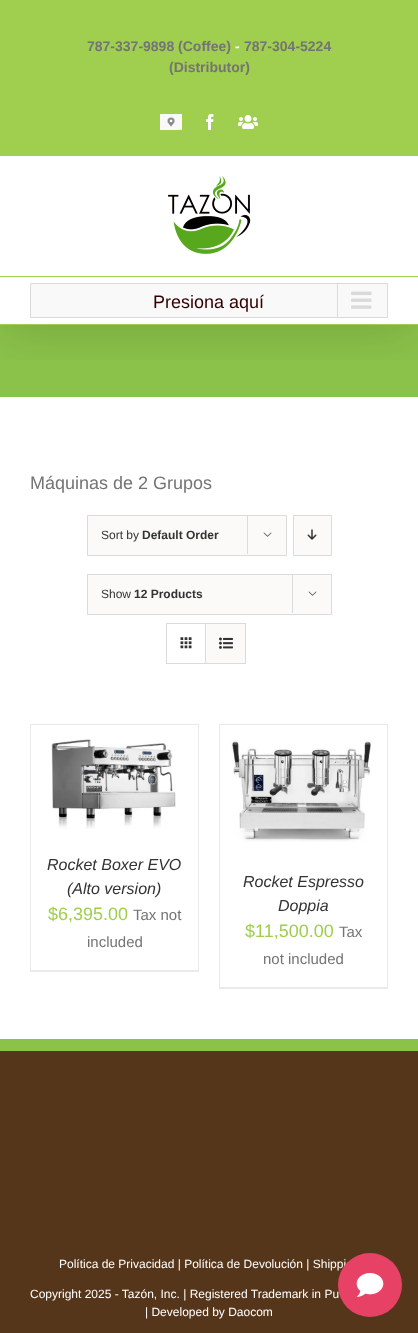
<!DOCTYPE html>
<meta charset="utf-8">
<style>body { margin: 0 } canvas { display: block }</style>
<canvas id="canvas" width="418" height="1333"></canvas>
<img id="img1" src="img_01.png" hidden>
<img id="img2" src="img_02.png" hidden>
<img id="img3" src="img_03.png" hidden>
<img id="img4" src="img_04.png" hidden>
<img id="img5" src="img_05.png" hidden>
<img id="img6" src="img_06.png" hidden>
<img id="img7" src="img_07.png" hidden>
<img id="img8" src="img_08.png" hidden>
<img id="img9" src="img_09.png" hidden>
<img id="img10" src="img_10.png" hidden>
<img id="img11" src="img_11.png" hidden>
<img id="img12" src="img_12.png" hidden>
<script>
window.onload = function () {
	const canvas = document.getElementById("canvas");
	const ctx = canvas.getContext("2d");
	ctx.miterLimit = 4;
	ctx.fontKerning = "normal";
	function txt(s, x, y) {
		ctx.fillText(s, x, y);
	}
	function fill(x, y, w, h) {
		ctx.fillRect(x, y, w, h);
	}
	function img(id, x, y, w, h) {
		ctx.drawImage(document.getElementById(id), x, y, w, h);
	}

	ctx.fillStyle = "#FFFFFF";
	fill(0, 0, 418, 1333);
	ctx.fillStyle = "#8BC34A";
	fill(0, 325, 418, 72);
	ctx.save();
	ctx.beginPath();
	ctx.rect(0, 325, 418, 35);
	ctx.clip();
	ctx.fillStyle = "rgba(0, 0, 0, 0.14)";
	ctx.filter = "blur(25px)";
	ctx.beginPath();
	ctx.rect(2, 12, 414, 321);
	ctx.fill();
	ctx.filter = "none";
	ctx.restore();
	ctx.fillStyle = "#A0CE4E";
	fill(0, 0, 418, 156);
	img("img1", 160, 114, 22, 16);
	img("img2", 206, 114, 8, 16);
	img("img3", 238, 115, 20, 14);
	fill(0, 276, 418, 1);
	img("img4", 168, 176, 83, 78);
	fill(0, 324, 418, 1);
	ctx.fillStyle = "#F9F9F9";
	ctx.beginPath();
	ctx.rect(30.5, 283.5, 357, 34);
	ctx.fill();
	ctx.strokeStyle = "#DADADA";
	ctx.stroke();
	ctx.fillStyle = "#DADADA";
	fill(337, 284, 1, 33);
	img("img5", 351, 291, 21, 18);
	ctx.fillStyle = "#FBFAF9";
	ctx.beginPath();
	ctx.rect(87.5, 515.5, 199, 40);
	ctx.fill();
	ctx.strokeStyle = "#DBDBDB";
	ctx.stroke();
	ctx.fillStyle = "#DBDBDB";
	fill(247, 515, 1, 39);
	img("img6", 263, 532, 9, 5);
	ctx.fillStyle = "#FBFAF9";
	ctx.beginPath();
	ctx.rect(293.5, 515.5, 38, 40);
	ctx.fill();
	ctx.stroke();
	img("img7", 307, 529, 10, 11);
	ctx.beginPath();
	ctx.rect(87.5, 574.5, 244, 40);
	ctx.fill();
	ctx.stroke();
	ctx.fillStyle = "#DBDBDB";
	fill(292, 574, 1, 39);
	img("img6", 308, 591, 9, 5);
	ctx.strokeRect(166.5, 623.5, 79, 40);
	fill(205, 624, 1, 39);
	img("img8", 180, 637, 12, 12);
	ctx.fillStyle = "#FBFAF9";
	fill(206, 624, 39, 39);
	img("img9", 219, 637, 14, 12);
	ctx.fillStyle = "#EBEAEA";
	fill(30, 724, 169, 1);
	fill(198, 724, 1, 248);
	fill(30, 970, 169, 2);
	fill(30, 724, 1, 248);
	img("img10", 51, 739, 125, 90);
	fill(219, 724, 169, 1);
	fill(387, 724, 1, 265);
	fill(219, 987, 169, 2);
	fill(219, 724, 1, 265);
	img("img11", 231, 741, 140, 101);
	ctx.fillStyle = "#55361B";
	fill(0, 1051, 418, 282);
	ctx.fillStyle = "#8BC34A";
	fill(0, 1039, 418, 12);
	ctx.font = "bold 14px Liberation Sans";
	ctx.fillStyle = "#747474";
	txt("787-337-9898 (Coffee)", 87, 51);
	ctx.fillStyle = "#FFFFFF";
	txt("-", 235, 51);
	ctx.fillStyle = "#747474";
	txt("787-304-5224", 244, 51);
	txt("(Distributor)", 169, 72);
	ctx.font = "18px Liberation Sans";
	ctx.fillStyle = "#330000";
	txt("Presiona aquí", 153, 308);
	ctx.fillStyle = "#747474";
	txt("Máquinas de 2 Grupos", 30, 489);
	ctx.font = "12px Liberation Sans";
	ctx.fillStyle = "#333333";
	txt("Sort by", 101, 539);
	ctx.font = "bold 12px Liberation Sans";
	txt("Default Order", 142, 539);
	ctx.font = "12px Liberation Sans";
	txt("Show", 101, 598);
	ctx.font = "bold 12px Liberation Sans";
	txt("12 Products", 134, 598);
	ctx.font = "italic 16px Liberation Sans";
	txt("Rocket Boxer EVO", 47, 870);
	txt("(Alto version)", 67, 894);
	ctx.font = "18px Liberation Sans";
	ctx.fillStyle = "#A0CE4E";
	txt("$6,395.00", 48, 920);
	ctx.font = "15px Liberation Sans";
	ctx.fillStyle = "#747474";
	txt("Tax not", 133, 920);
	txt("included", 87, 947);
	ctx.font = "italic 16px Liberation Sans";
	ctx.fillStyle = "#333333";
	txt("Rocket Espresso", 243, 887);
	txt("Doppia", 278, 911);
	ctx.font = "18px Liberation Sans";
	ctx.fillStyle = "#A0CE4E";
	txt("$11,500.00", 245, 937);
	ctx.font = "15px Liberation Sans";
	ctx.fillStyle = "#747474";
	txt("Tax", 339, 937);
	txt("not included", 263, 964);
	ctx.font = "12px Liberation Sans";
	ctx.fillStyle = "#FFFFFF";
	txt("Política de Privacidad | Política de Devolución | Shippi", 59, 1268);
	txt("Copyright 2025 - Tazón, Inc. | Registered Trademark in Pu", 30, 1298);
	txt("| Developed by Daocom", 145, 1316);
	ctx.fillStyle = "#E74266";
	ctx.beginPath();
	ctx.arc(370, 1285, 32, 0, Math.PI * 2);
	ctx.fill();
	img("img12", 356, 1273, 28, 24);
};
</script>
